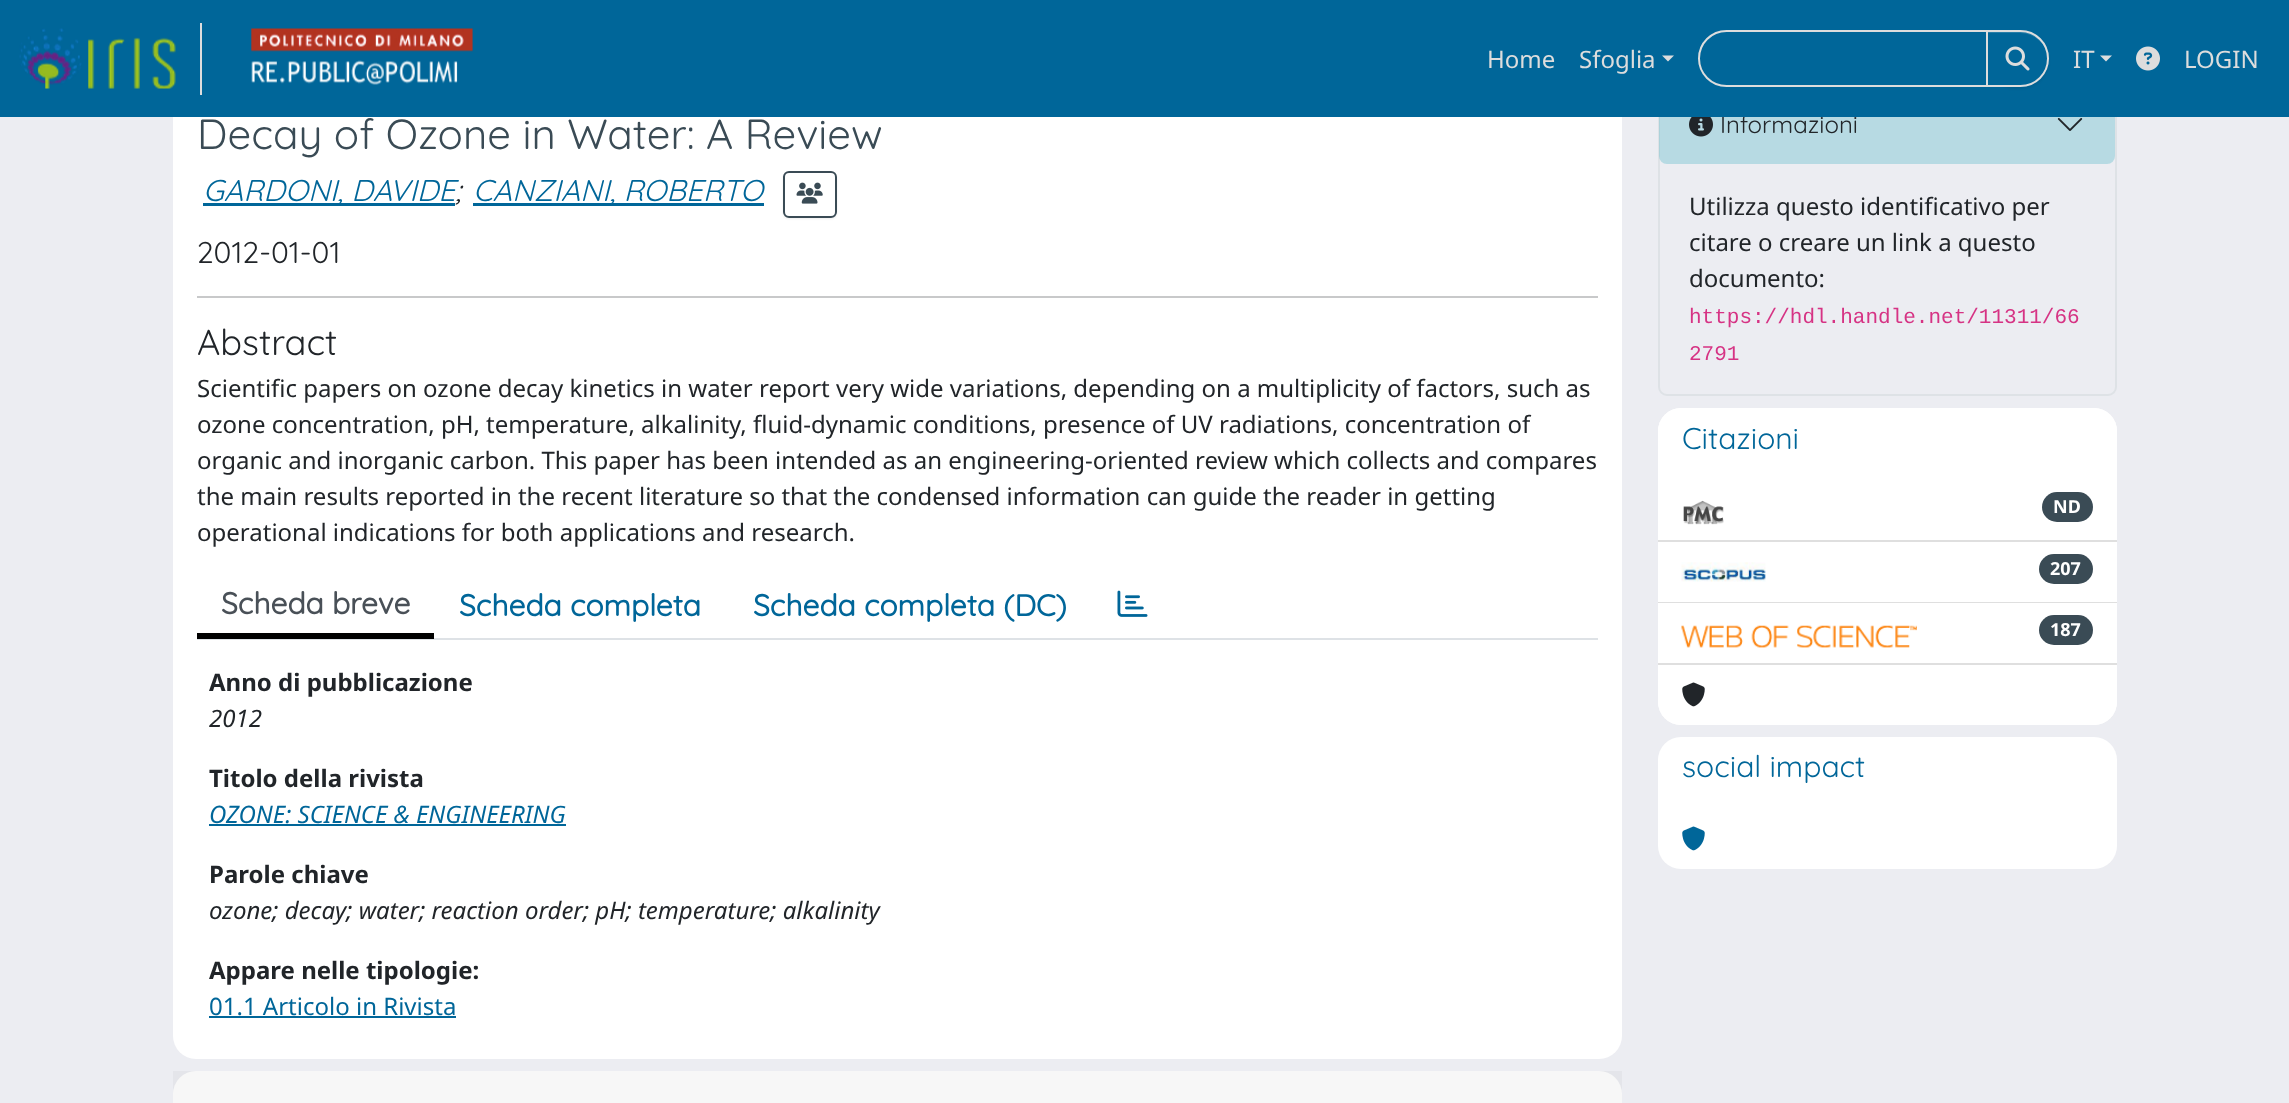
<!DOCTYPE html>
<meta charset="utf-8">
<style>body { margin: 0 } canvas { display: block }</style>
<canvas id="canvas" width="2289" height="1103"></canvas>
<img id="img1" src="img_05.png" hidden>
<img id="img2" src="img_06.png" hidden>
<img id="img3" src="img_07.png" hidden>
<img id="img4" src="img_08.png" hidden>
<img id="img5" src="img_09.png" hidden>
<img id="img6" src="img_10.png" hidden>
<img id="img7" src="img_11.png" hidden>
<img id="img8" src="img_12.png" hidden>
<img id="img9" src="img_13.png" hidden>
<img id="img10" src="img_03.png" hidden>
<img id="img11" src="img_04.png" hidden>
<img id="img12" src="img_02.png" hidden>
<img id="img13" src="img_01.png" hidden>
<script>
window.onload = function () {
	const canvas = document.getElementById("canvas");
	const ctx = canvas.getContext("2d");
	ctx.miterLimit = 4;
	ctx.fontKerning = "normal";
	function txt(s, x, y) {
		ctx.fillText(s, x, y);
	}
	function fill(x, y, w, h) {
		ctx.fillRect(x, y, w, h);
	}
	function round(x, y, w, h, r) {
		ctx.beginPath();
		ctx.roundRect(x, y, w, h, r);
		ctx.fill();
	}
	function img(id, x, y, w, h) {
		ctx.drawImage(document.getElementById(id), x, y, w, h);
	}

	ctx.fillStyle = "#ECEDF2";
	fill(0, 0, 2289, 1103);
	ctx.fillStyle = "#FFFFFF";
	round(173, 84, 1449, 975, 23);
	ctx.fillStyle = "#006699";
	fill(203, 203, 252, 3);
	fill(473, 203, 291, 3);
	ctx.save();
	ctx.beginPath();
	ctx.moveTo(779, 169);
	ctx.lineTo(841, 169);
	ctx.lineTo(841, 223);
	ctx.lineTo(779, 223);
	ctx.closePath();
	ctx.moveTo(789, 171);
	ctx.lineTo(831, 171);
	ctx.bezierCurveTo(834.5, 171, 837, 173.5, 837, 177);
	ctx.lineTo(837, 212);
	ctx.bezierCurveTo(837, 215.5, 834.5, 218, 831, 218);
	ctx.lineTo(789, 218);
	ctx.bezierCurveTo(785.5, 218, 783, 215.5, 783, 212);
	ctx.lineTo(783, 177);
	ctx.bezierCurveTo(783, 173.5, 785.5, 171, 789, 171);
	ctx.closePath();
	ctx.clip("evenodd");
	ctx.fillStyle = "rgba(0, 0, 0, 0.07)";
	ctx.filter = "blur(1px)";
	ctx.beginPath();
	ctx.roundRect(783, 173, 54, 46, 6);
	ctx.fill();
	ctx.filter = "none";
	ctx.restore();
	ctx.beginPath();
	ctx.roundRect(784, 172, 52, 45, 5);
	ctx.strokeStyle = "#3A4B55";
	ctx.lineWidth = 2;
	ctx.stroke();
	img("img1", 796, 182, 27, 22);
	ctx.fillStyle = "#C8C9CA";
	fill(197, 296, 1401, 2);
	ctx.fillStyle = "#DEE2E6";
	fill(197, 638, 1401, 2);
	ctx.fillStyle = "#000000";
	fill(197, 633, 237, 6);
	img("img2", 1117, 590, 31, 27);
	ctx.fillStyle = "#006699";
	fill(209, 824, 357, 2);
	fill(209, 1016, 247, 2);
	ctx.fillStyle = "#FFFFFF";
	round(173, 1071, 1449, 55, 23);
	ctx.fillStyle = "rgba(0, 0, 0, 0.03)";
	fill(173, 1071, 1449, 32);
	ctx.beginPath();
	ctx.roundRect(1659, 85, 457, 310, 8);
	ctx.strokeStyle = "#DEE2E6";
	ctx.stroke();
	ctx.fillStyle = "rgba(23, 162, 184, 0.25)";
	round(1659, 86, 456, 78, 8);
	img("img3", 1689, 117, 24, 20);
	img("img4", 2057, 118, 26, 13);
	ctx.fillStyle = "#FFFFFF";
	round(1658, 408, 459, 317, 23);
	ctx.beginPath();
	ctx.roundRect(1658, 408, 459, 72, [23, 23, 0, 0]);
	ctx.fill();
	ctx.fillStyle = "#DFDFDF";
	fill(1658, 540, 459, 2);
	img("img5", 1683, 500, 41, 25);
	ctx.fillStyle = "#3A4B55";
	round(2042, 492, 51, 30, 15);
	ctx.fillStyle = "#DFDFDF";
	fill(1658, 602, 459, 1);
	img("img6", 1681, 562, 85, 20);
	ctx.fillStyle = "#3A4B55";
	round(2039, 554, 54, 30, 15);
	ctx.fillStyle = "#DFDFDF";
	fill(1658, 663, 459, 2);
	img("img7", 1681, 625, 236, 23);
	ctx.fillStyle = "#3A4B55";
	round(2039, 615, 54, 30, 15);
	ctx.fillStyle = "#FFFFFF";
	ctx.beginPath();
	ctx.roundRect(1658, 665, 459, 60, [0, 0, 23, 23]);
	ctx.fill();
	img("img8", 1682, 682, 23, 25);
	ctx.beginPath();
	ctx.roundRect(1658, 737, 459, 72, [23, 23, 0, 0]);
	ctx.fill();
	ctx.beginPath();
	ctx.roundRect(1658, 809, 459, 60, [0, 0, 23, 23]);
	ctx.fill();
	img("img9", 1682, 826, 23, 25);
	ctx.font = "300 42px Quicksand";
	ctx.fillStyle = "#3A4B55";
	txt("Decay of Ozone in Water: A Review", 197, 149);
	ctx.font = "italic 300 30px Quicksand";
	ctx.fillStyle = "#006699";
	txt("GARDONI, DAVIDE", 203, 201);
	ctx.fillStyle = "#212529";
	txt(";", 455, 201);
	ctx.fillStyle = "#006699";
	txt("CANZIANI, ROBERTO", 473, 201);
	ctx.font = "300 30px Quicksand";
	ctx.fillStyle = "#212529";
	txt("2012-01-01", 197, 263);
	ctx.font = "300 36px Quicksand";
	txt("Abstract", 197, 355);
	ctx.font = "24px Noto Sans";
	txt("Scientific papers on ozone decay kinetics in water report very wide variations, depending on a multiplicity of factors, such as", 197, 397);
	txt("ozone concentration, pH, temperature, alkalinity, fluid-dynamic conditions, presence of UV radiations, concentration of", 197, 433);
	txt("organic and inorganic carbon. This paper has been intended as an engineering-oriented review which collects and compares", 197, 469);
	txt("the main results reported in the recent literature so that the condensed information can guide the reader in getting", 197, 505);
	txt("operational indications for both applications and research.", 197, 541);
	ctx.font = "bold 30px Quicksand";
	ctx.fillStyle = "#495057";
	txt("Scheda breve", 221, 614);
	ctx.fillStyle = "#006699";
	txt("Scheda completa", 459, 616);
	txt("Scheda completa (DC)", 753, 616);
	ctx.font = "bold 24px Noto Sans";
	ctx.fillStyle = "#212529";
	txt("Anno di pubblicazione", 209, 691);
	ctx.font = "italic 24px Noto Sans";
	txt("2012", 209, 727);
	ctx.font = "bold 24px Noto Sans";
	txt("Titolo della rivista", 209, 787);
	ctx.font = "italic 24px Noto Sans";
	ctx.fillStyle = "#006699";
	txt("OZONE: SCIENCE & ENGINEERING", 209, 823);
	ctx.font = "bold 24px Noto Sans";
	ctx.fillStyle = "#212529";
	txt("Parole chiave", 209, 883);
	ctx.font = "italic 24px Noto Sans";
	txt("ozone; decay; water; reaction order; pH; temperature; alkalinity", 209, 919);
	ctx.font = "bold 24px Noto Sans";
	txt("Appare nelle tipologie:", 209, 979);
	ctx.font = "24px Noto Sans";
	ctx.fillStyle = "#006699";
	txt("01.1 Articolo in Rivista", 209, 1015);
	ctx.font = "300 24px Quicksand";
	ctx.fillStyle = "#212529";
	txt("Informazioni", 1720, 133);
	ctx.fillStyle = "#006699";
	fill(0, 0, 2289, 117);
	ctx.beginPath();
	ctx.roundRect(1699, 31, 288, 55, [27.5, 0, 0, 27.5]);
	ctx.strokeStyle = "#DDDDDD";
	ctx.stroke();
	ctx.fillStyle = "rgba(0, 0, 0, 0.07)";
	ctx.filter = "blur(1px)";
	ctx.beginPath();
	ctx.roundRect(1986, 32, 63, 57, 28.5);
	ctx.fill();
	ctx.filter = "none";
	ctx.fillStyle = "#006699";
	ctx.beginPath();
	ctx.roundRect(1986, 30, 63, 57, [0, 28.5, 28.5, 0]);
	ctx.fill();
	ctx.fillStyle = "#267DA8";
	ctx.beginPath();
	ctx.moveTo(1988, 33);
	ctx.lineTo(2020, 33);
	ctx.bezierCurveTo(2035, 33, 2048, 45, 2048, 60);
	ctx.lineTo(2048, 59);
	ctx.bezierCurveTo(2048, 44, 2036, 32, 2021, 32);
	ctx.lineTo(1988, 32);
	ctx.closePath();
	ctx.fill();
	ctx.beginPath();
	ctx.roundRect(1987, 31, 61, 55, [0, 27.5, 27.5, 0]);
	ctx.stroke();
	img("img10", 2005, 46, 25, 25);
	ctx.font = "24px Noto Sans";
	ctx.fillStyle = "#DDDDDD";
	txt("LOGIN", 2184, 68);
	ctx.beginPath();
	ctx.moveTo(2100, 55.5);
	ctx.lineTo(2112, 55.5);
	ctx.lineTo(2106, 61.5);
	ctx.closePath();
	ctx.fill();
	txt("IT", 2073, 68);
	ctx.beginPath();
	ctx.moveTo(1662, 55.5);
	ctx.lineTo(1674, 55.5);
	ctx.lineTo(1668, 61.5);
	ctx.closePath();
	ctx.fill();
	txt("Sfoglia", 1579, 68);
	img("img11", 2136, 46, 24, 25);
	txt("Home", 1487, 68);
	img("img12", 251, 28, 222, 57);
	img("img13", 19, 28, 157, 61);
	fill(200, 23, 2, 72);
	ctx.fillStyle = "#212529";
	txt("Utilizza questo identificativo per", 1689, 215);
	txt("citare o creare un link a questo", 1689, 251);
	txt("documento:", 1689, 287);
	ctx.font = "21px Liberation Mono";
	ctx.fillStyle = "#D63384";
	txt("https://hdl.handle.net/11311/66", 1689, 323);
	txt("2791", 1689, 360);
	ctx.font = "300 30px Quicksand";
	ctx.fillStyle = "#006699";
	txt("Citazioni", 1682, 449);
	ctx.font = "bold 18px Noto Sans";
	ctx.fillStyle = "#FFFFFF";
	txt("ND", 2053, 513);
	txt("207", 2050, 575);
	txt("187", 2050, 636);
	ctx.font = "300 30px Quicksand";
	ctx.fillStyle = "#006699";
	txt("social impact", 1682, 777);
};
</script>
